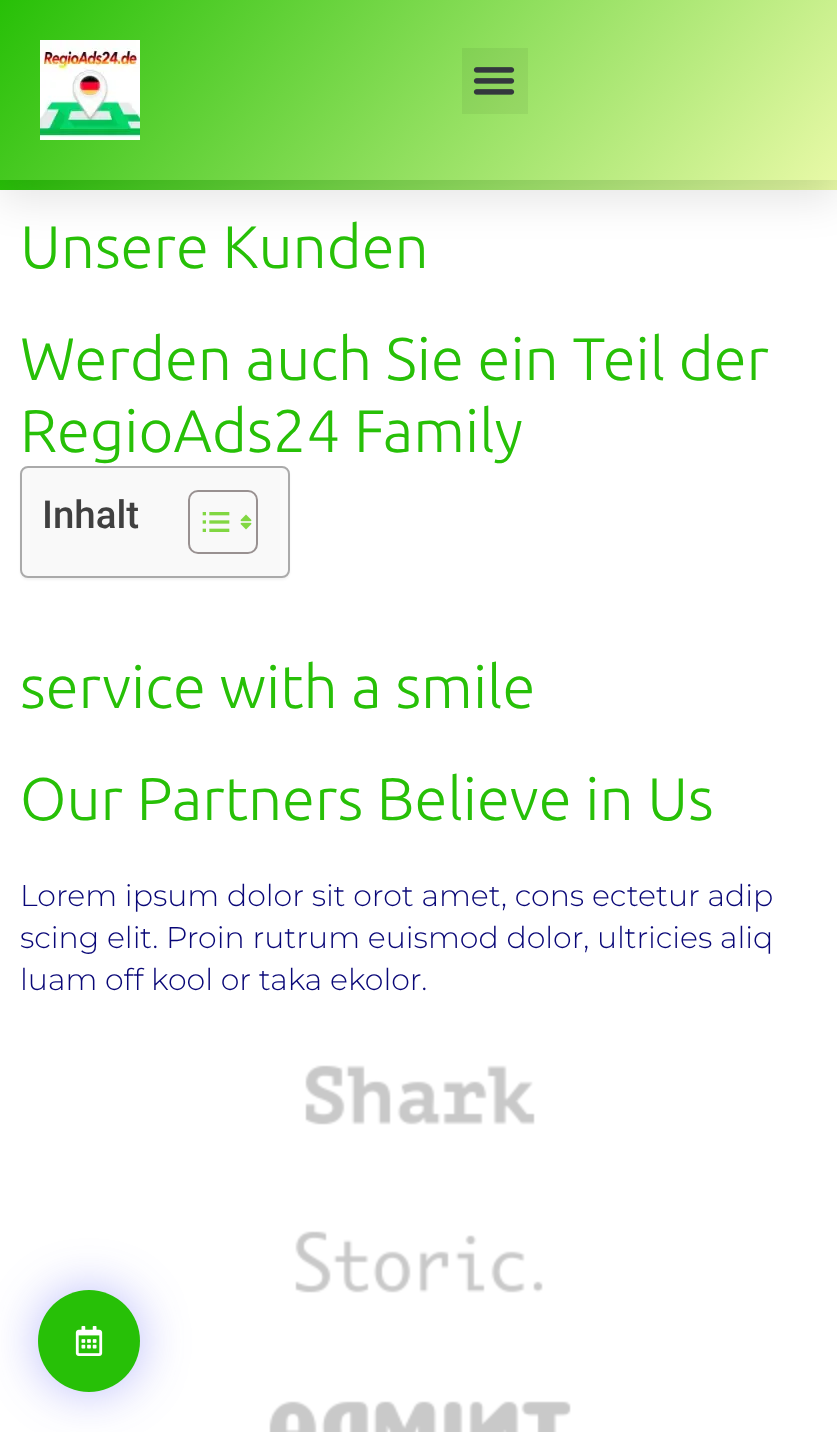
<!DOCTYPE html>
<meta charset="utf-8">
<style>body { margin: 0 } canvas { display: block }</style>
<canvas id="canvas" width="837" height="1432"></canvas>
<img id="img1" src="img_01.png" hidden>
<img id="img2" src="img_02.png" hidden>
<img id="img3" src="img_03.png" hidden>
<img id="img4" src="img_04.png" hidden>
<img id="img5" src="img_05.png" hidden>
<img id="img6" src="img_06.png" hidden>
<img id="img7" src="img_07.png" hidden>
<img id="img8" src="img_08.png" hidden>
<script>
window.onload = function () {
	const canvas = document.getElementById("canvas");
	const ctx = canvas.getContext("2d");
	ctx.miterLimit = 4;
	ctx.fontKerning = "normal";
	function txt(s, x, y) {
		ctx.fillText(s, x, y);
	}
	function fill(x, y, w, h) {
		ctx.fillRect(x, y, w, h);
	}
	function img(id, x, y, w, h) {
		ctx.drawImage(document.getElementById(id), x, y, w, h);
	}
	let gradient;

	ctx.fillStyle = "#FFFFFF";
	fill(0, 0, 837, 1432);
	gradient = ctx.createLinearGradient(171, -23, 667, 393);
	gradient.addColorStop(0, "#27C007");
	gradient.addColorStop(1, "#E8F9A7");
	ctx.fillStyle = gradient;
	fill(0, 180, 837, 10);
	ctx.fillStyle = "rgba(0, 0, 0, 0.1)";
	ctx.filter = "blur(20px)";
	ctx.beginPath();
	ctx.rect(0, 20, 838, 180);
	ctx.fill();
	ctx.filter = "none";
	gradient = ctx.createLinearGradient(129, -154, 709, 334);
	gradient.addColorStop(0, "#27C007");
	gradient.addColorStop(1, "#E8F9A7");
	ctx.fillStyle = gradient;
	fill(0, 0, 837, 180);
	img("img1", 40, 40, 100, 100);
	ctx.fillStyle = "rgba(0, 0, 0, 0.05)";
	fill(462, 48, 66, 66);
	img("img2", 473, 67, 42, 28);
	ctx.filter = "blur(1px)";
	ctx.beginPath();
	ctx.roundRect(20, 468, 270, 112, 8);
	ctx.fill();
	ctx.filter = "none";
	ctx.fillStyle = "#F9F9F9";
	ctx.beginPath();
	ctx.roundRect(21, 467, 268, 110, 7);
	ctx.fill();
	ctx.strokeStyle = "#AAAAAA";
	ctx.lineWidth = 2;
	ctx.stroke();
	ctx.beginPath();
	ctx.roundRect(189, 491, 68, 62, 9);
	ctx.strokeStyle = "#999191";
	ctx.stroke();
	img("img3", 202, 512, 28, 20);
	img("img4", 240, 514, 12, 16);
	img("img5", 305, 1065, 230, 60);
	img("img6", 295, 1231, 248, 62);
	img("img7", 269, 1401, 302, 31);
	ctx.fillStyle = "rgba(53, 56, 240, 0.35)";
	ctx.filter = "blur(25px)";
	ctx.beginPath();
	ctx.roundRect(38, 1290, 102, 102, 51);
	ctx.fill();
	ctx.filter = "none";
	ctx.fillStyle = "#27C007";
	ctx.beginPath();
	ctx.arc(89, 1341, 51, 0, Math.PI * 2);
	ctx.fill();
	img("img8", 75, 1326, 28, 30);
	ctx.font = "300 60px Ubuntu";
	txt("Unsere Kunden", 20, 268);
	txt("Werden auch Sie ein Teil der", 20, 380);
	txt("RegioAds24 Family", 20, 452);
	ctx.font = "500 38.5px Roboto";
	ctx.fillStyle = "#404040";
	txt("Inhalt", 42, 528);
	ctx.font = "300 60px Ubuntu";
	ctx.fillStyle = "#27C007";
	txt("service with a smile", 20, 708);
	txt("Our Partners Believe in Us", 20, 820);
	ctx.font = "300 30px Montserrat";
	ctx.fillStyle = "#090777";
	txt("Lorem ipsum dolor sit orot amet, cons ectetur adip", 20, 906);
	txt("scing elit. Proin rutrum euismod dolor, ultricies aliq", 20, 948);
	txt("luam off kool or taka ekolor.", 20, 990);
};
</script>
